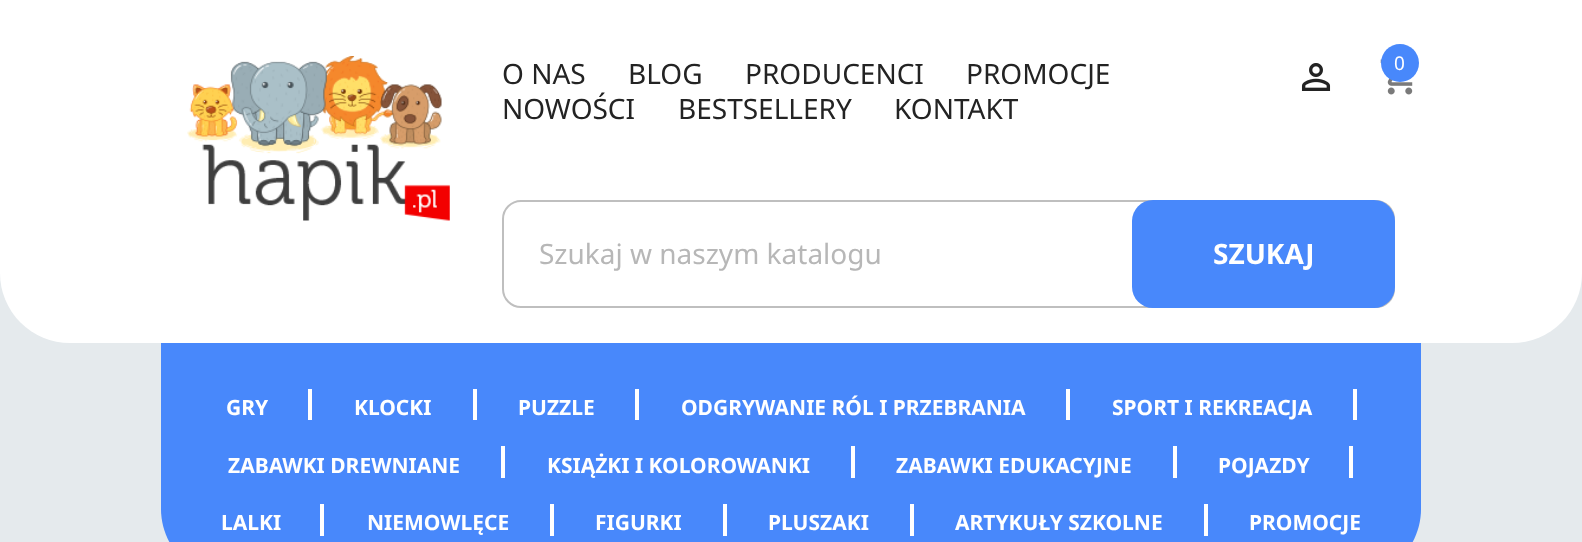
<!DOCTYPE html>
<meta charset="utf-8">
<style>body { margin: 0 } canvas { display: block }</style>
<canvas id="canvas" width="1582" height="542"></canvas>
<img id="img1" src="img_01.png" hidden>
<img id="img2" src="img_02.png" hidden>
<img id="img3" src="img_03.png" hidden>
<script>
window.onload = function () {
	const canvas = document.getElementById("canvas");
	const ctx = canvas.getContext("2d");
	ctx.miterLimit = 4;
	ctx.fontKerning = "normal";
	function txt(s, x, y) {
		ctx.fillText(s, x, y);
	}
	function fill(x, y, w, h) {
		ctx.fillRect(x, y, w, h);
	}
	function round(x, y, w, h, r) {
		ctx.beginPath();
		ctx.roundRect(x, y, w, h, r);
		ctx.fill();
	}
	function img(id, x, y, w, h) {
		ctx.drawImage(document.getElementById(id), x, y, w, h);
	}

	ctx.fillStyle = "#FFFFFF";
	fill(0, 0, 1582, 542);
	ctx.fillStyle = "#E5EAED";
	fill(0, 273, 1582, 269);
	ctx.fillStyle = "#FFFFFF";
	ctx.beginPath();
	ctx.roundRect(0, 56, 1582, 287, [0, 0, 70, 70]);
	ctx.fill();
	img("img1", 187, 56, 263, 165);
	img("img2", 1301, 63, 30, 28);
	img("img3", 1380, 59, 33, 36);
	ctx.fillStyle = "#4888FB";
	ctx.beginPath();
	ctx.arc(1400, 63, 19, 0, Math.PI * 2);
	ctx.fill();
	ctx.beginPath();
	ctx.roundRect(503, 201, 891, 106, 18);
	ctx.strokeStyle = "#BFBFBF";
	ctx.lineWidth = 2;
	ctx.stroke();
	round(1132, 200, 263, 108, 21);
	ctx.beginPath();
	ctx.moveTo(161, 343);
	ctx.lineTo(1421, 343);
	ctx.lineTo(1421, 509);
	ctx.bezierCurveTo(1421, 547.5, 1389.5, 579, 1351, 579);
	ctx.lineTo(231, 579);
	ctx.bezierCurveTo(192.5, 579, 161, 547.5, 161, 509);
	ctx.closePath();
	ctx.fill();
	ctx.fillStyle = "#FFFFFF";
	fill(308, 389, 4, 31);
	fill(473, 389, 4, 31);
	fill(635, 389, 4, 31);
	fill(1066, 389, 4, 31);
	fill(1353, 389, 4, 31);
	fill(501, 446, 4, 32);
	fill(851, 446, 4, 32);
	fill(1173, 446, 4, 32);
	fill(1349, 446, 4, 32);
	fill(320, 504, 4, 32);
	fill(550, 504, 4, 32);
	fill(723, 504, 4, 32);
	fill(910, 504, 4, 32);
	fill(1204, 504, 4, 32);
	ctx.font = "28px Noto Sans";
	ctx.fillStyle = "#232323";
	txt("O NAS", 502, 84);
	txt("BLOG", 628, 84);
	txt("PRODUCENCI", 745, 84);
	txt("PROMOCJE", 966, 84);
	txt("NOWOŚCI", 502, 119);
	txt("BESTSELLERY", 678, 119);
	txt("KONTAKT", 894, 119);
	ctx.font = "19px Noto Sans";
	ctx.fillStyle = "#FFFFFF";
	txt("0", 1394, 70);
	ctx.font = "28px Noto Sans";
	ctx.fillStyle = "#B7B7B7";
	txt("Szukaj w naszym katalogu", 539, 264);
	ctx.font = "bold 28px Noto Sans";
	ctx.fillStyle = "#FFFFFF";
	txt("SZUKAJ", 1213, 264);
	ctx.font = "bold 21px Noto Sans";
	txt("GRY", 226, 415);
	txt("KLOCKI", 354, 415);
	txt("PUZZLE", 518, 415);
	txt("ODGRYWANIE RÓL I PRZEBRANIA", 681, 415);
	txt("SPORT I REKREACJA", 1112, 415);
	txt("ZABAWKI DREWNIANE", 228, 473);
	txt("KSIĄŻKI I KOLOROWANKI", 547, 473);
	txt("ZABAWKI EDUKACYJNE", 896, 473);
	txt("POJAZDY", 1218, 473);
	txt("LALKI", 221, 530);
	txt("NIEMOWLĘCE", 367, 530);
	txt("FIGURKI", 595, 530);
	txt("PLUSZAKI", 768, 530);
	txt("ARTYKUŁY SZKOLNE", 955, 530);
	txt("PROMOCJE", 1249, 530);
};
</script>
